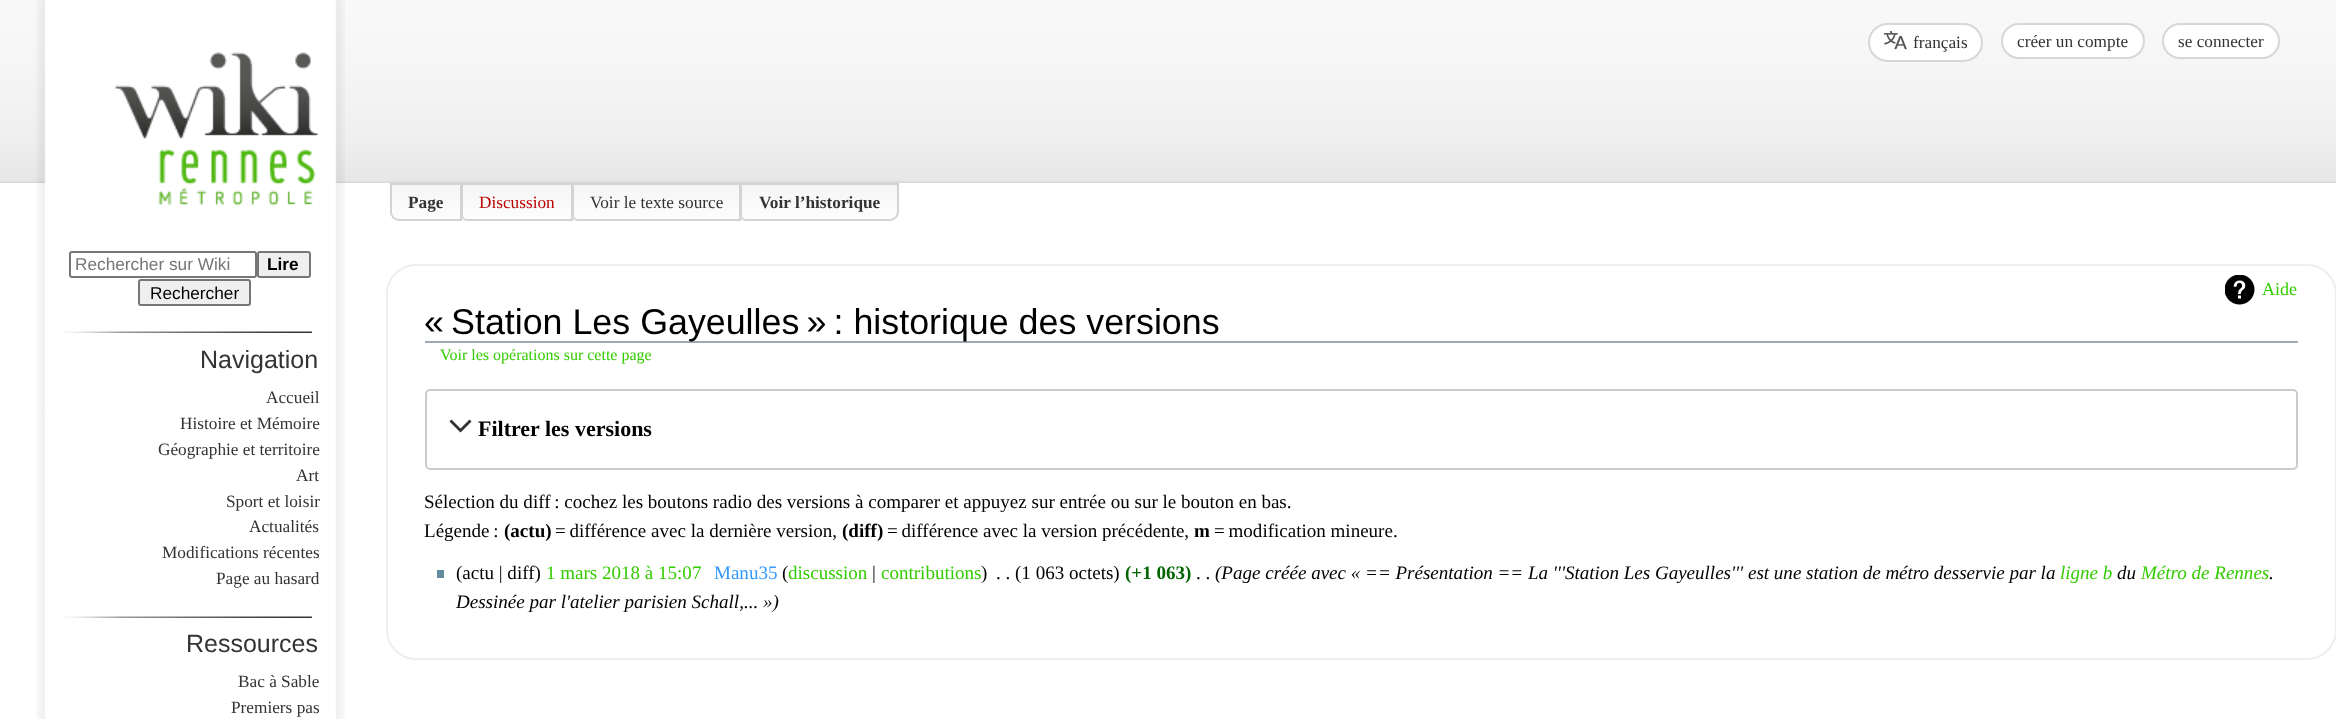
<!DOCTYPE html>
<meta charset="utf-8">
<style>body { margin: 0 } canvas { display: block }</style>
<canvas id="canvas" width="2336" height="719"></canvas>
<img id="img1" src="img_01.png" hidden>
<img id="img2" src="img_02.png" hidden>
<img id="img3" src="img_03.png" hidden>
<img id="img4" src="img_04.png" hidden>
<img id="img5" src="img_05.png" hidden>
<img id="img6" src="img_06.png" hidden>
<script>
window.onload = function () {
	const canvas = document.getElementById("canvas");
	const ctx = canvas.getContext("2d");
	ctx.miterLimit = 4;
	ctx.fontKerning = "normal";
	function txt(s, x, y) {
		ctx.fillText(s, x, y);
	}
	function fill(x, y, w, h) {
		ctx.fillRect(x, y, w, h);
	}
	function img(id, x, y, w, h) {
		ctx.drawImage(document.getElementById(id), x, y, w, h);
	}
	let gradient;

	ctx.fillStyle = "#FFFFFF";
	fill(0, 0, 2336, 719);
	img("img1", 0, 0, 2336, 183);
	img("img2", 36, 0, 309, 719);
	ctx.beginPath();
	ctx.roundRect(1869, 24, 113, 37, 18.5);
	ctx.fill();
	ctx.strokeStyle = "#D7D7D7";
	ctx.lineWidth = 2;
	ctx.stroke();
	img("img3", 1884, 30, 23, 20);
	ctx.beginPath();
	ctx.roundRect(2002, 24, 142, 34, 17);
	ctx.fill();
	ctx.stroke();
	ctx.beginPath();
	ctx.roundRect(2163, 24, 116, 34, 17);
	ctx.fill();
	ctx.stroke();
	img("img4", 115, 52, 203, 154);
	ctx.save();
	ctx.beginPath();
	ctx.roundRect(390, 183, 72, 38, [0, 0, 0, 9]);
	ctx.clip();
	gradient = ctx.createLinearGradient(426, 185, 426, 219);
	gradient.addColorStop(0, "#F5F5F5");
	gradient.addColorStop(1, "#FDFDFD");
	ctx.fillStyle = gradient;
	fill(390, 185, 70, 34);
	ctx.restore();
	gradient = ctx.createLinearGradient(517, 185, 517, 219);
	gradient.addColorStop(0, "#F5F5F5");
	gradient.addColorStop(1, "#FDFDFD");
	ctx.fillStyle = gradient;
	fill(462, 185, 109, 32);
	ctx.beginPath();
	ctx.roundRect(462, 184, 110, 36, [0, 0, 0, 5]);
	ctx.strokeStyle = "#D3D3D3";
	ctx.stroke();
	ctx.beginPath();
	ctx.roundRect(391, 184, 70, 36, [0, 0, 0, 8]);
	ctx.stroke();
	ctx.save();
	ctx.beginPath();
	ctx.roundRect(572, 183, 169, 38, [0, 0, 0, 6]);
	ctx.clip();
	gradient = ctx.createLinearGradient(656, 185, 656, 219);
	gradient.addColorStop(0, "#F5F5F5");
	gradient.addColorStop(1, "#FDFDFD");
	ctx.fillStyle = gradient;
	fill(572, 185, 167, 34);
	ctx.restore();
	ctx.beginPath();
	ctx.roundRect(573, 184, 167, 36, [0, 0, 0, 5]);
	ctx.stroke();
	ctx.save();
	ctx.beginPath();
	ctx.roundRect(740, 183, 159, 38, [0, 0, 9, 6]);
	ctx.clip();
	gradient = ctx.createLinearGradient(819, 185, 819, 219);
	gradient.addColorStop(0, "#F5F5F5");
	gradient.addColorStop(1, "#FDFDFD");
	ctx.fillStyle = gradient;
	fill(740, 185, 159, 34);
	ctx.restore();
	ctx.beginPath();
	ctx.roundRect(741, 184, 157, 36, [0, 0, 8, 5]);
	ctx.stroke();
	ctx.beginPath();
	ctx.roundRect(70, 252, 186, 25, 2);
	ctx.strokeStyle = "#767676";
	ctx.stroke();
	ctx.fillStyle = "#EFEFEF";
	ctx.beginPath();
	ctx.roundRect(258, 252, 52, 25, 2);
	ctx.fill();
	ctx.stroke();
	ctx.beginPath();
	ctx.roundRect(139, 280, 111, 25, 2);
	ctx.fill();
	ctx.stroke();
	img("img5", 64, 331, 248, 2);
	img("img5", 64, 616, 248, 2);
	ctx.beginPath();
	ctx.roundRect(387, 265, 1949, 394, 29);
	ctx.strokeStyle = "#EEEEEE";
	ctx.stroke();
	img("img6", 2225, 275, 30, 30);
	ctx.fillStyle = "#A2A9B1";
	fill(425, 341, 1873, 2);
	ctx.beginPath();
	ctx.roundRect(426, 390, 1871, 79, 4);
	ctx.strokeStyle = "#CCCCCC";
	ctx.stroke();
	ctx.fillStyle = "#333333";
	ctx.beginPath();
	ctx.moveTo(469.5, 419.5);
	ctx.lineTo(460.5, 428.5);
	ctx.lineTo(451.5, 419.5);
	ctx.lineTo(449.5, 421.5);
	ctx.lineTo(460.5, 432.5);
	ctx.lineTo(471.5, 421.5);
	ctx.closePath();
	ctx.fill();
	ctx.fillStyle = "#638C9C";
	fill(437, 570, 7, 8);
	ctx.font = "17.25px Liberation Serif";
	ctx.fillStyle = "#333333";
	txt("français", 1913, 48);
	txt("créer un compte", 2017, 47);
	txt("se connecter", 2178, 47);
	ctx.font = "bold 17.25px Liberation Serif";
	txt("Page", 408, 208);
	ctx.font = "17.25px Liberation Serif";
	ctx.fillStyle = "#BA0000";
	txt("Discussion", 479, 208);
	ctx.fillStyle = "#333333";
	txt("Voir le texte source", 590, 208);
	ctx.font = "bold 17.25px Liberation Serif";
	txt("Voir l’historique", 759, 208);
	ctx.font = "17.25px Liberation Sans";
	ctx.fillStyle = "#757575";
	txt("Rechercher sur Wiki", 75, 270);
	ctx.font = "bold 17.25px Liberation Sans";
	ctx.fillStyle = "#000000";
	txt("Lire", 267, 270);
	ctx.font = "17.25px Liberation Sans";
	txt("Rechercher", 150, 299);
	ctx.font = "25px Liberation Sans";
	ctx.fillStyle = "#333333";
	txt("Navigation", 200, 368);
	ctx.font = "17.25px Liberation Serif";
	txt("Accueil", 266, 403);
	txt("Histoire et Mémoire", 180, 429);
	txt("Géographie et territoire", 158, 455);
	txt("Art", 296, 481);
	txt("Sport et loisir", 226, 507);
	txt("Actualités", 249, 532);
	txt("Modifications récentes", 162, 558);
	txt("Page au hasard", 216, 584);
	ctx.font = "25px Liberation Sans";
	txt("Ressources", 186, 652);
	ctx.font = "17.25px Liberation Serif";
	txt("Bac à Sable", 238, 687);
	txt("Premiers pas", 231, 713);
	ctx.font = "18px Liberation Serif";
	ctx.fillStyle = "#33CC00";
	txt("Aide", 2262, 295);
	ctx.font = "35.8px Liberation Sans";
	ctx.fillStyle = "#000000";
	txt("« Station Les Gayeulles » : historique des versions", 424, 334);
	ctx.font = "16px Liberation Serif";
	ctx.fillStyle = "#33CC00";
	txt("Voir les opérations sur cette page", 440, 360);
	ctx.font = "bold 22px Liberation Serif";
	ctx.fillStyle = "#000000";
	txt("Filtrer les versions", 478, 436);
	ctx.font = "19.05px Liberation Serif";
	txt("Sélection du diff : cochez les boutons radio des versions à comparer et appuyez sur entrée ou sur le bouton en bas.", 424, 508);
	txt("Légende :", 424, 537);
	ctx.font = "bold 19.05px Liberation Serif";
	txt("(actu)", 504, 537);
	ctx.font = "19.05px Liberation Serif";
	txt("= différence avec la dernière version,", 555, 537);
	ctx.font = "bold 19.05px Liberation Serif";
	txt("(diff)", 842, 537);
	ctx.font = "19.05px Liberation Serif";
	txt("= différence avec la version précédente,", 887, 537);
	ctx.font = "bold 19.05px Liberation Serif";
	txt("m", 1194, 537);
	ctx.font = "19.05px Liberation Serif";
	txt("= modification mineure.", 1214, 537);
	txt("(actu | diff)", 456, 579);
	ctx.fillStyle = "#33CC00";
	txt("1 mars 2018 à 15:07", 546, 579);
	ctx.fillStyle = "#3399FF";
	txt("Manu35", 714, 579);
	ctx.fillStyle = "#000000";
	txt("(", 782, 579);
	ctx.fillStyle = "#33CC00";
	txt("discussion", 788, 579);
	ctx.fillStyle = "#000000";
	txt("|", 872, 579);
	ctx.fillStyle = "#33CC00";
	txt("contributions", 881, 579);
	ctx.fillStyle = "#000000";
	txt(")", 981, 579);
	txt(". . (1 063 octets)", 996, 579);
	ctx.font = "bold 19.05px Liberation Serif";
	ctx.fillStyle = "#006400";
	txt("(+1 063)", 1125, 579);
	ctx.font = "19.05px Liberation Serif";
	ctx.fillStyle = "#000000";
	txt(". .", 1196, 579);
	ctx.font = "italic 19.05px Liberation Serif";
	txt("(Page créée avec « == Présentation == La '''Station Les Gayeulles''' est une station de métro desservie par la", 1215, 579);
	ctx.fillStyle = "#33CC00";
	txt("ligne b", 2060, 579);
	ctx.fillStyle = "#000000";
	txt("du", 2117, 579);
	ctx.fillStyle = "#33CC00";
	txt("Métro de Rennes", 2141, 579);
	ctx.fillStyle = "#000000";
	txt(".", 2269, 579);
	txt("Dessinée par l'atelier parisien Schall,... »)", 456, 608);
};
</script>
